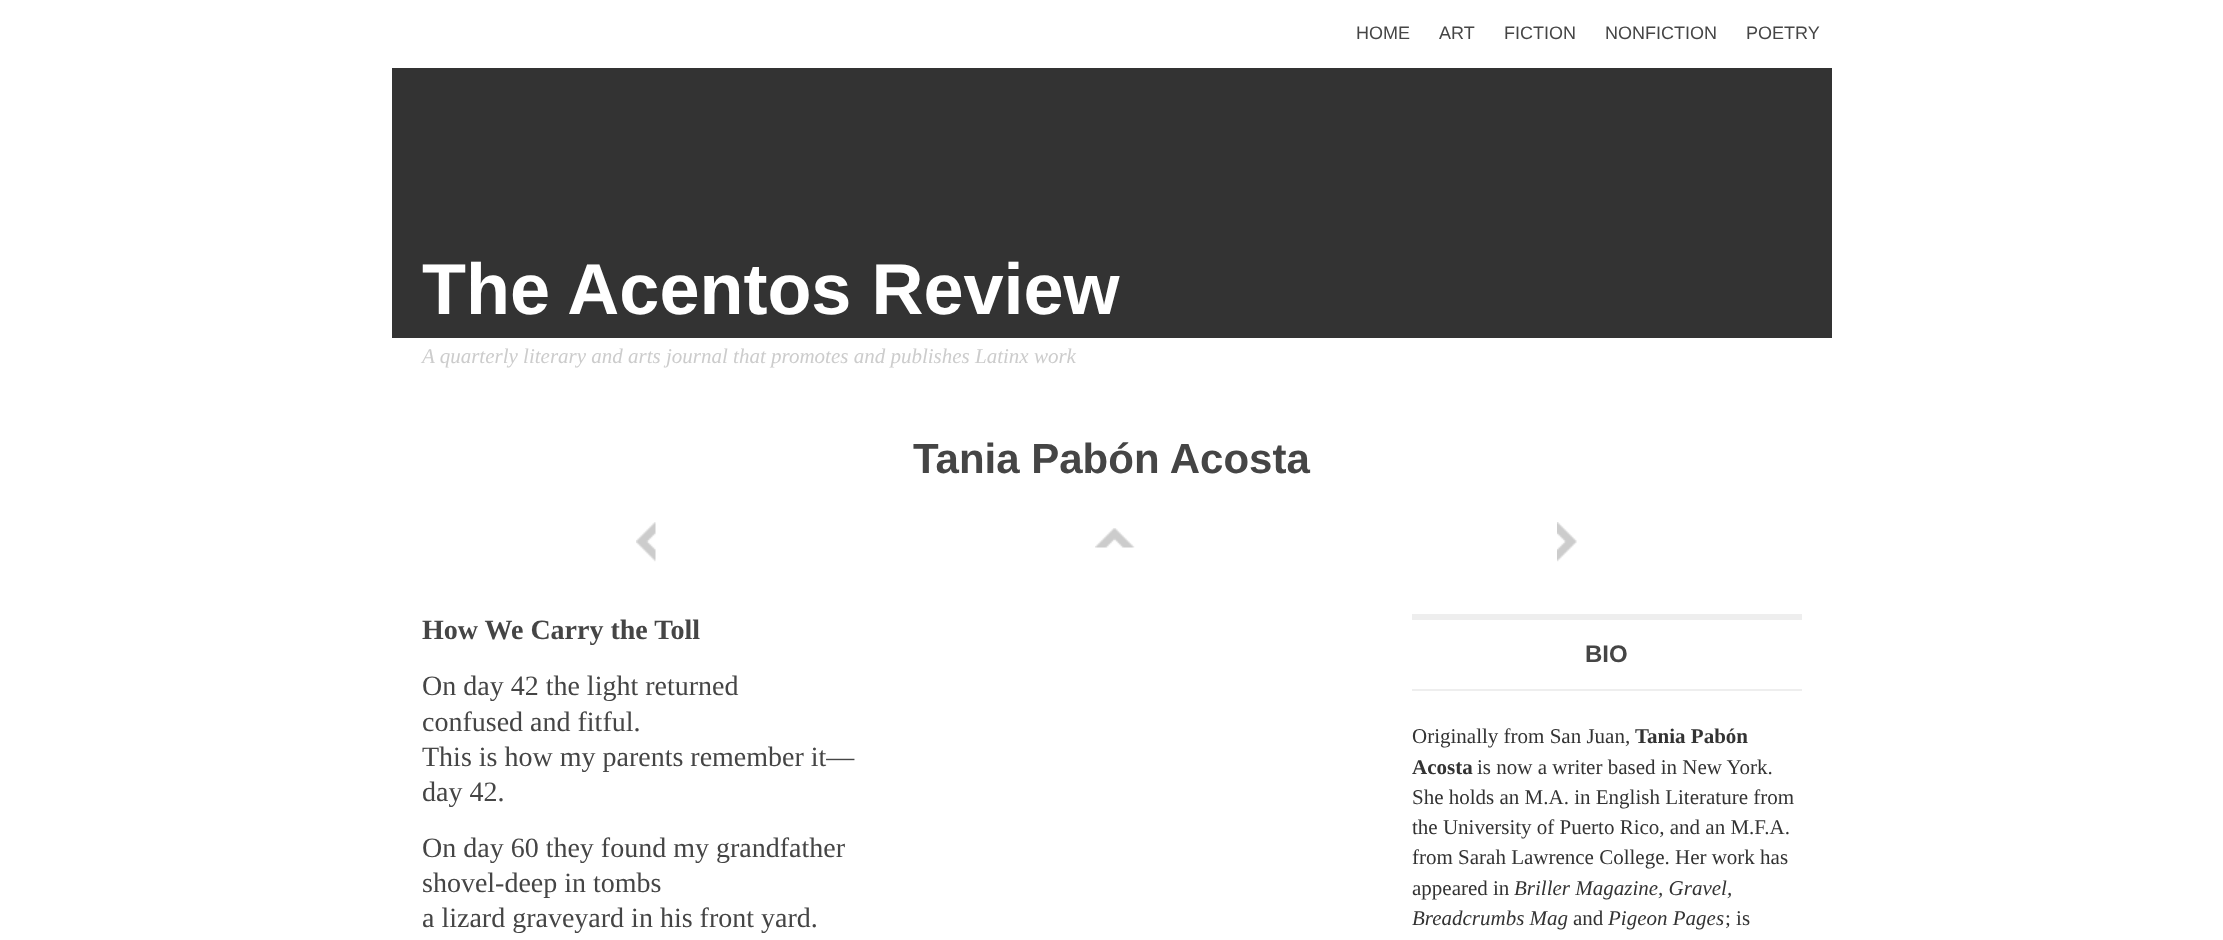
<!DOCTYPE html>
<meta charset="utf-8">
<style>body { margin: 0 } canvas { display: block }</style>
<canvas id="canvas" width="2223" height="940"></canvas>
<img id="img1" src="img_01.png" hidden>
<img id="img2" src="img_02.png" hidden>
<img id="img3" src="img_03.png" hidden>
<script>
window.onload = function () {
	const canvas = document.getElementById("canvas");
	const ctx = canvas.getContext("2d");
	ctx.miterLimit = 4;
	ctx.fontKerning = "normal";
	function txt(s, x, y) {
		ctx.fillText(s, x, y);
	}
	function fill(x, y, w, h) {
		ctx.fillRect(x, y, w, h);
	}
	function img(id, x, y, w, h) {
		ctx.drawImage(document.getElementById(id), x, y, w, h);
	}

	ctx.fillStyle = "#FFFFFF";
	fill(0, 0, 2223, 940);
	ctx.fillStyle = "#333333";
	fill(392, 68, 1440, 270);
	img("img1", 636, 522, 20, 40);
	img("img2", 1095, 528, 40, 20);
	img("img3", 1557, 522, 20, 40);
	ctx.fillStyle = "#EEEEEE";
	fill(1412, 614, 390, 6);
	fill(1412, 689, 390, 2);
	ctx.font = "18px Liberation Sans";
	ctx.fillStyle = "#454545";
	txt("HOME", 1356, 39);
	txt("ART", 1439, 39);
	txt("FICTION", 1504, 39);
	txt("NONFICTION", 1605, 39);
	txt("POETRY", 1746, 39);
	ctx.font = "bold 72px Liberation Sans";
	ctx.fillStyle = "#FFFFFF";
	txt("The Acentos Review", 422, 314);
	ctx.font = "italic 21px Liberation Serif";
	ctx.fillStyle = "#CCCCCC";
	txt("A quarterly literary and arts journal that promotes and publishes Latinx work", 422, 363);
	ctx.font = "bold 42px Liberation Sans";
	ctx.fillStyle = "#454545";
	txt("Tania Pabón Acosta", 913, 473);
	ctx.font = "bold 28px Liberation Serif";
	txt("How We Carry the Toll", 422, 639);
	ctx.font = "28px Liberation Serif";
	txt("On day 42 the light returned", 422, 695);
	txt("confused and fitful.", 422, 731);
	txt("This is how my parents remember it—", 422, 766);
	txt("day 42.", 422, 801);
	ctx.font = "bold 24px Liberation Sans";
	txt("BIO", 1585, 662);
	ctx.font = "21px Liberation Serif";
	ctx.fillStyle = "#333333";
	txt("Originally from San Juan,", 1412, 743);
	ctx.font = "bold 21px Liberation Serif";
	txt("Tania Pabón", 1635, 743);
	txt("Acosta", 1412, 774);
	ctx.font = "21px Liberation Serif";
	txt("is now a writer based in New York.", 1477, 774);
	txt("She holds an M.A. in English Literature from", 1412, 804);
	txt("the University of Puerto Rico, and an M.F.A.", 1412, 834);
	txt("from Sarah Lawrence College. Her work has", 1412, 864);
	txt("appeared in", 1412, 895);
	ctx.font = "italic 21px Liberation Serif";
	txt("Briller Magazine, Gravel,", 1514, 895);
	txt("Breadcrumbs Mag", 1412, 925);
	ctx.font = "21px Liberation Serif";
	txt("and", 1573, 925);
	ctx.font = "italic 21px Liberation Serif";
	txt("Pigeon Pages", 1608, 925);
	ctx.font = "21px Liberation Serif";
	txt("; is", 1725, 925);
	ctx.font = "28px Liberation Serif";
	ctx.fillStyle = "#454545";
	txt("On day 60 they found my grandfather", 422, 857);
	txt("shovel-deep in tombs", 422, 892);
	txt("a lizard graveyard in his front yard.", 422, 927);
};
</script>
